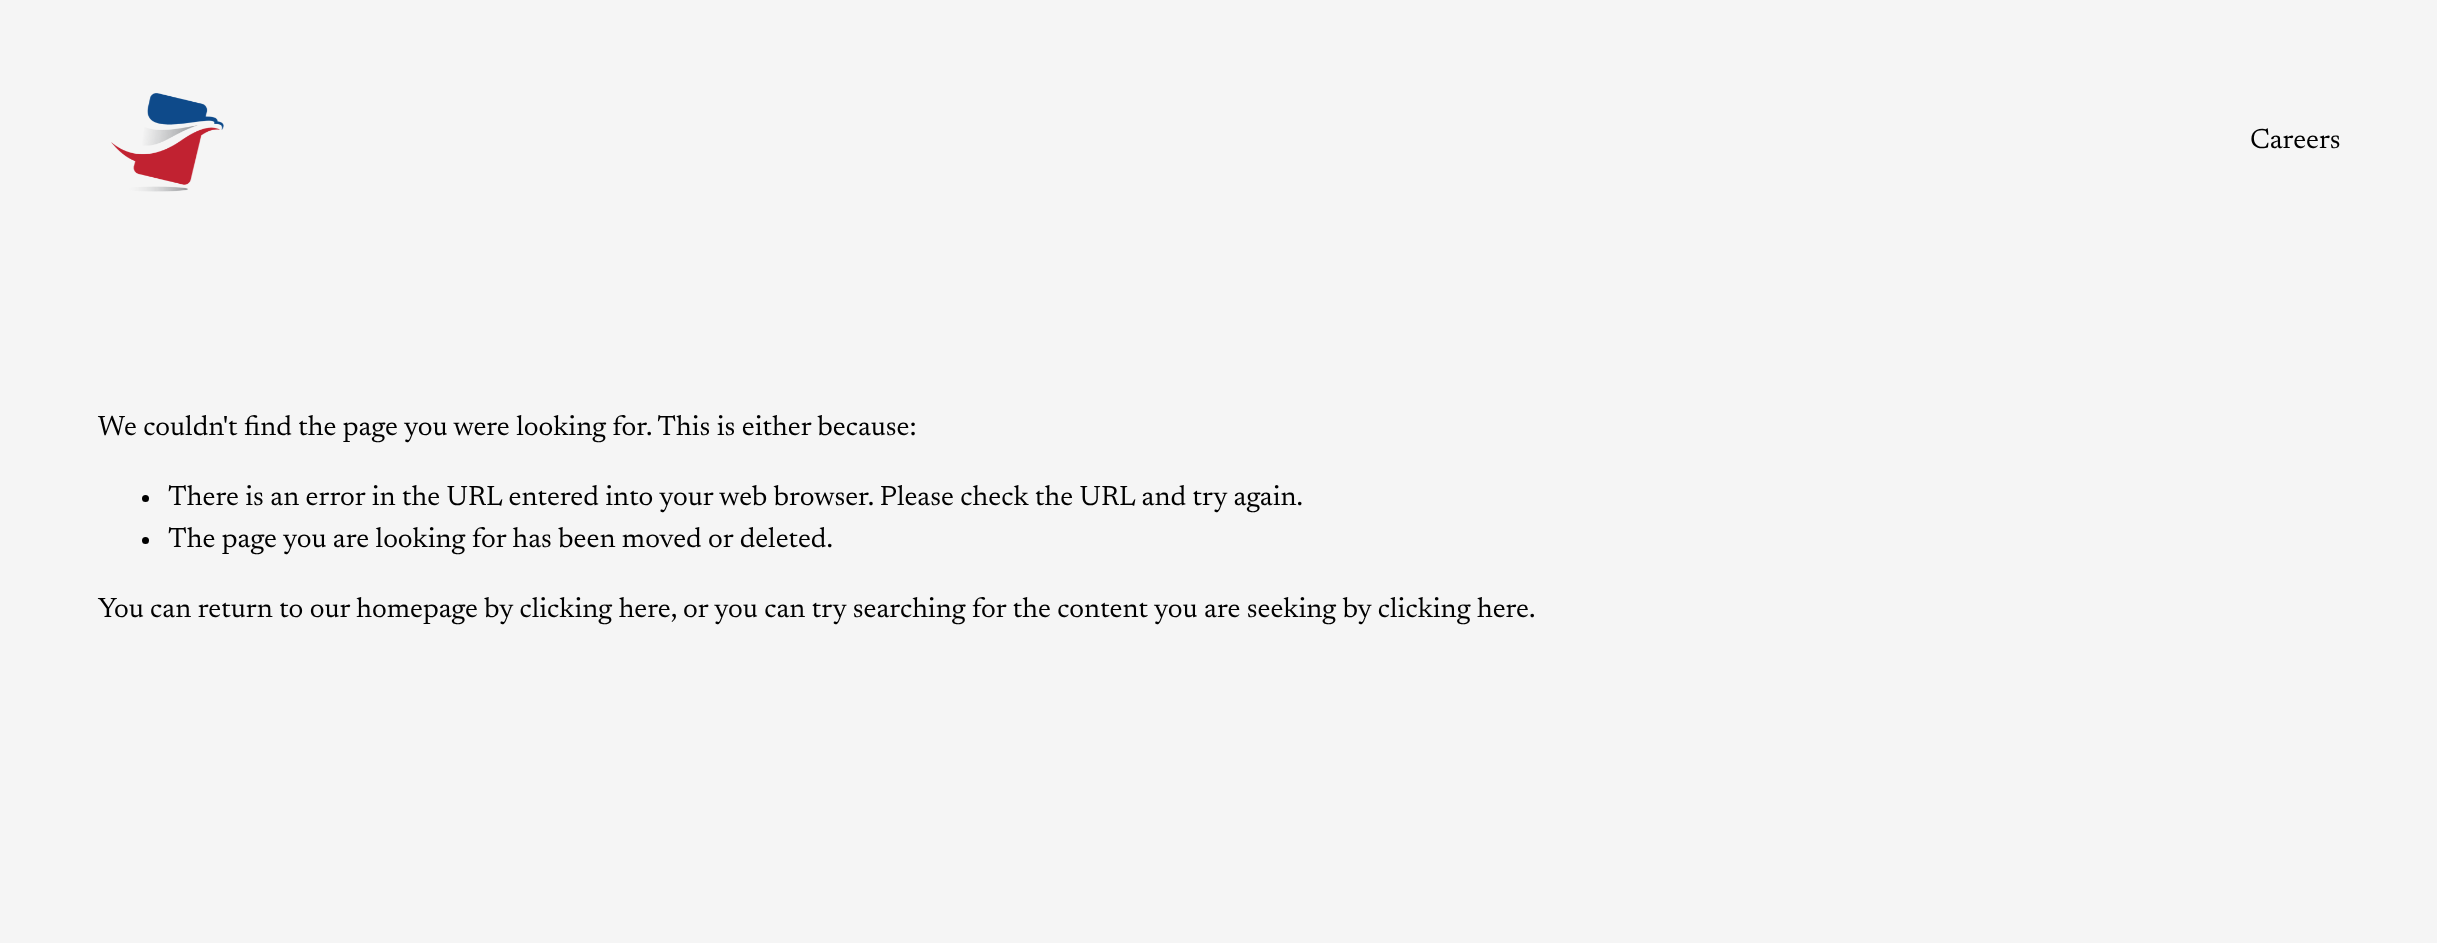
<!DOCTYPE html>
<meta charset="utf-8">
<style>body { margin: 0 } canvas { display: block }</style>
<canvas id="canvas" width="2437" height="943"></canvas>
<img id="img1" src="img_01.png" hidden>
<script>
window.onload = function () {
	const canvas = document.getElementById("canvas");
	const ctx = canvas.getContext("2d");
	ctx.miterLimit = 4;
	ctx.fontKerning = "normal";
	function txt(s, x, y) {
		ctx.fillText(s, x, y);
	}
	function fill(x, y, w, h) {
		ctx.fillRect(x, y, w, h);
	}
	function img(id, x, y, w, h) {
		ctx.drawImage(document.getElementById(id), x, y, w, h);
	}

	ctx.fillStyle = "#F5F5F5";
	fill(0, 0, 2437, 943);
	img("img1", 111, 93, 113, 99);
	ctx.fillStyle = "#000000";
	ctx.beginPath();
	ctx.arc(145.5, 498.5, 3.5, 0, Math.PI * 2);
	ctx.fill();
	ctx.beginPath();
	ctx.arc(145.5, 540.5, 3.5, 0, Math.PI * 2);
	ctx.fill();
	ctx.font = "28px Newsreader";
	txt("Careers", 2250, 148);
	txt("We couldn't find the page you were looking for. This is either because:", 98, 435);
	txt("There is an error in the URL entered into your web browser. Please check the URL and try again.", 168, 505);
	txt("The page you are looking for has been moved or deleted.", 168, 547);
	txt("You can return to our homepage by clicking here, or you can try searching for the content you are seeking by clicking here.", 98, 617);
};
</script>
